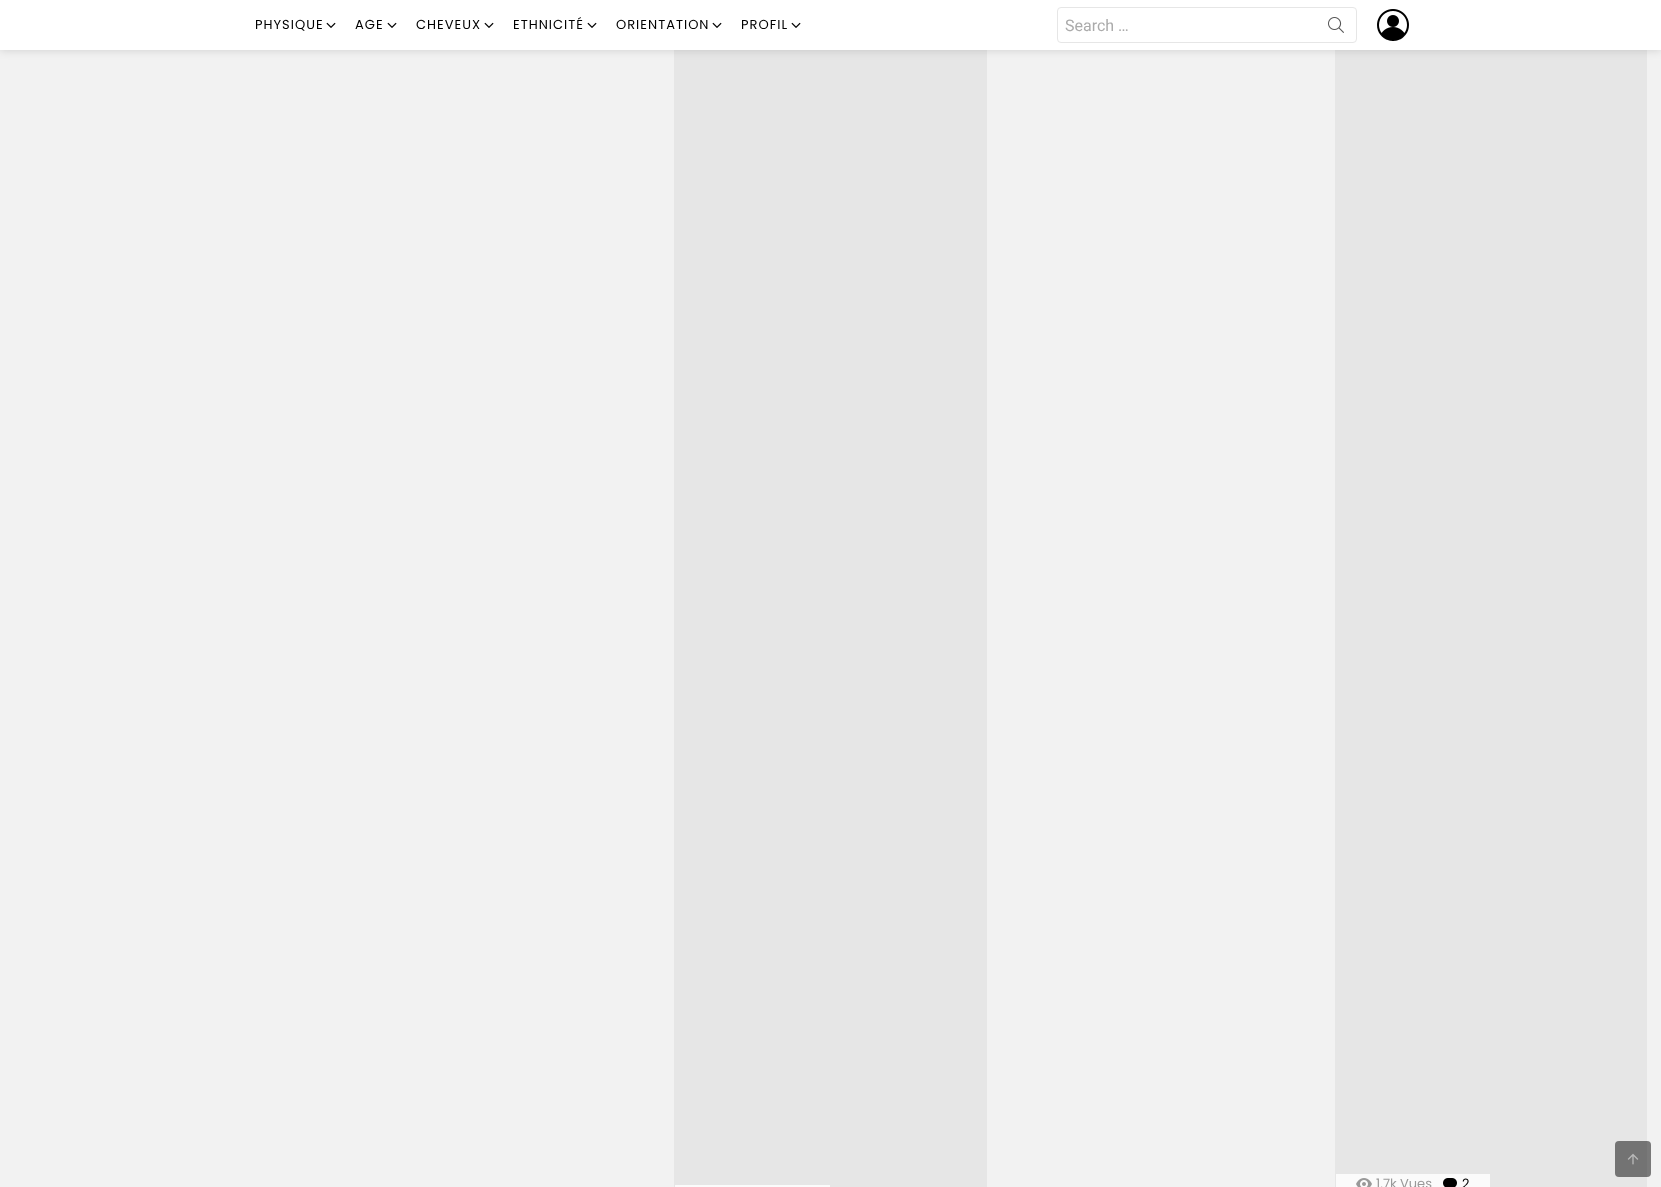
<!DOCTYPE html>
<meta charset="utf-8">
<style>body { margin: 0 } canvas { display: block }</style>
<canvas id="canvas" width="1661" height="1187"></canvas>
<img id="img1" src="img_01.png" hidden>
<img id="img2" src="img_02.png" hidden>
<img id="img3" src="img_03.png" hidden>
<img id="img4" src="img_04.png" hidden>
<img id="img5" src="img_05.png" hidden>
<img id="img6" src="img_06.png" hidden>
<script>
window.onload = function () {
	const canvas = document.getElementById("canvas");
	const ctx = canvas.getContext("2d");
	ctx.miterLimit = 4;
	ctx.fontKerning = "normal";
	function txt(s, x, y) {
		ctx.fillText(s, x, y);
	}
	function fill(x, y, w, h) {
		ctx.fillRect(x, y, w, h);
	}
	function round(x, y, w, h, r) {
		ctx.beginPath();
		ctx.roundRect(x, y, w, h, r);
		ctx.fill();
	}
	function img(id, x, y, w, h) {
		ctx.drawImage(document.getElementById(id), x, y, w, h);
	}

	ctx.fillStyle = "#F2F2F2";
	fill(0, 0, 1661, 1187);
	ctx.fillStyle = "#E6E6E6";
	fill(674, 50, 313, 1137);
	fill(1335, 50, 312, 1137);
	ctx.fillStyle = "rgba(0, 0, 0, 0.15)";
	ctx.filter = "blur(5px)";
	ctx.beginPath();
	ctx.rect(0, 0, 1661, 50);
	ctx.fill();
	ctx.filter = "none";
	ctx.fillStyle = "#FFFFFF";
	fill(0, 0, 1661, 50);
	img("img1", 326, 22, 10, 6);
	img("img1", 387, 22, 10, 6);
	img("img1", 484, 22, 10, 6);
	img("img1", 587, 22, 10, 6);
	img("img1", 712, 22, 10, 6);
	img("img1", 791, 22, 10, 6);
	ctx.beginPath();
	ctx.roundRect(1057.5, 7.5, 299, 35, 3.5);
	ctx.strokeStyle = "#E6E6E6";
	ctx.stroke();
	img("img2", 1328, 17, 16, 16);
	img("img3", 1377, 9, 32, 32);
	ctx.fillStyle = "rgba(0, 0, 0, 0.5)";
	round(1615, 1141, 36, 36, 4);
	img("img4", 1627, 1153, 12, 12);
	ctx.fillStyle = "#FBFBFB";
	fill(675, 1185, 155, 2);
	fill(1336, 1174, 154, 13);
	img("img5", 1356, 1178, 16, 9);
	img("img6", 1443, 1178, 14, 9);
	ctx.letterSpacing = "1px";
	ctx.font = "13px Poppins";
	ctx.fillStyle = "#000000";
	txt("PHYSIQUE", 255, 29);
	txt("AGE", 355, 29);
	txt("CHEVEUX", 416, 29);
	txt("ETHNICITÉ", 513, 29);
	txt("ORIENTATION", 616, 29);
	txt("PROFIL", 741, 29);
	ctx.letterSpacing = "0px";
	ctx.font = "16px Roboto";
	ctx.fillStyle = "#ABABAB";
	txt("Search …", 1065, 31);
	ctx.font = "13px Poppins";
	ctx.fillStyle = "#999999";
	txt("1.7k", 1376, 1188);
	txt("Vues", 1400, 1188);
	ctx.fillStyle = "#000000";
	txt("2", 1462, 1188);
};
</script>
